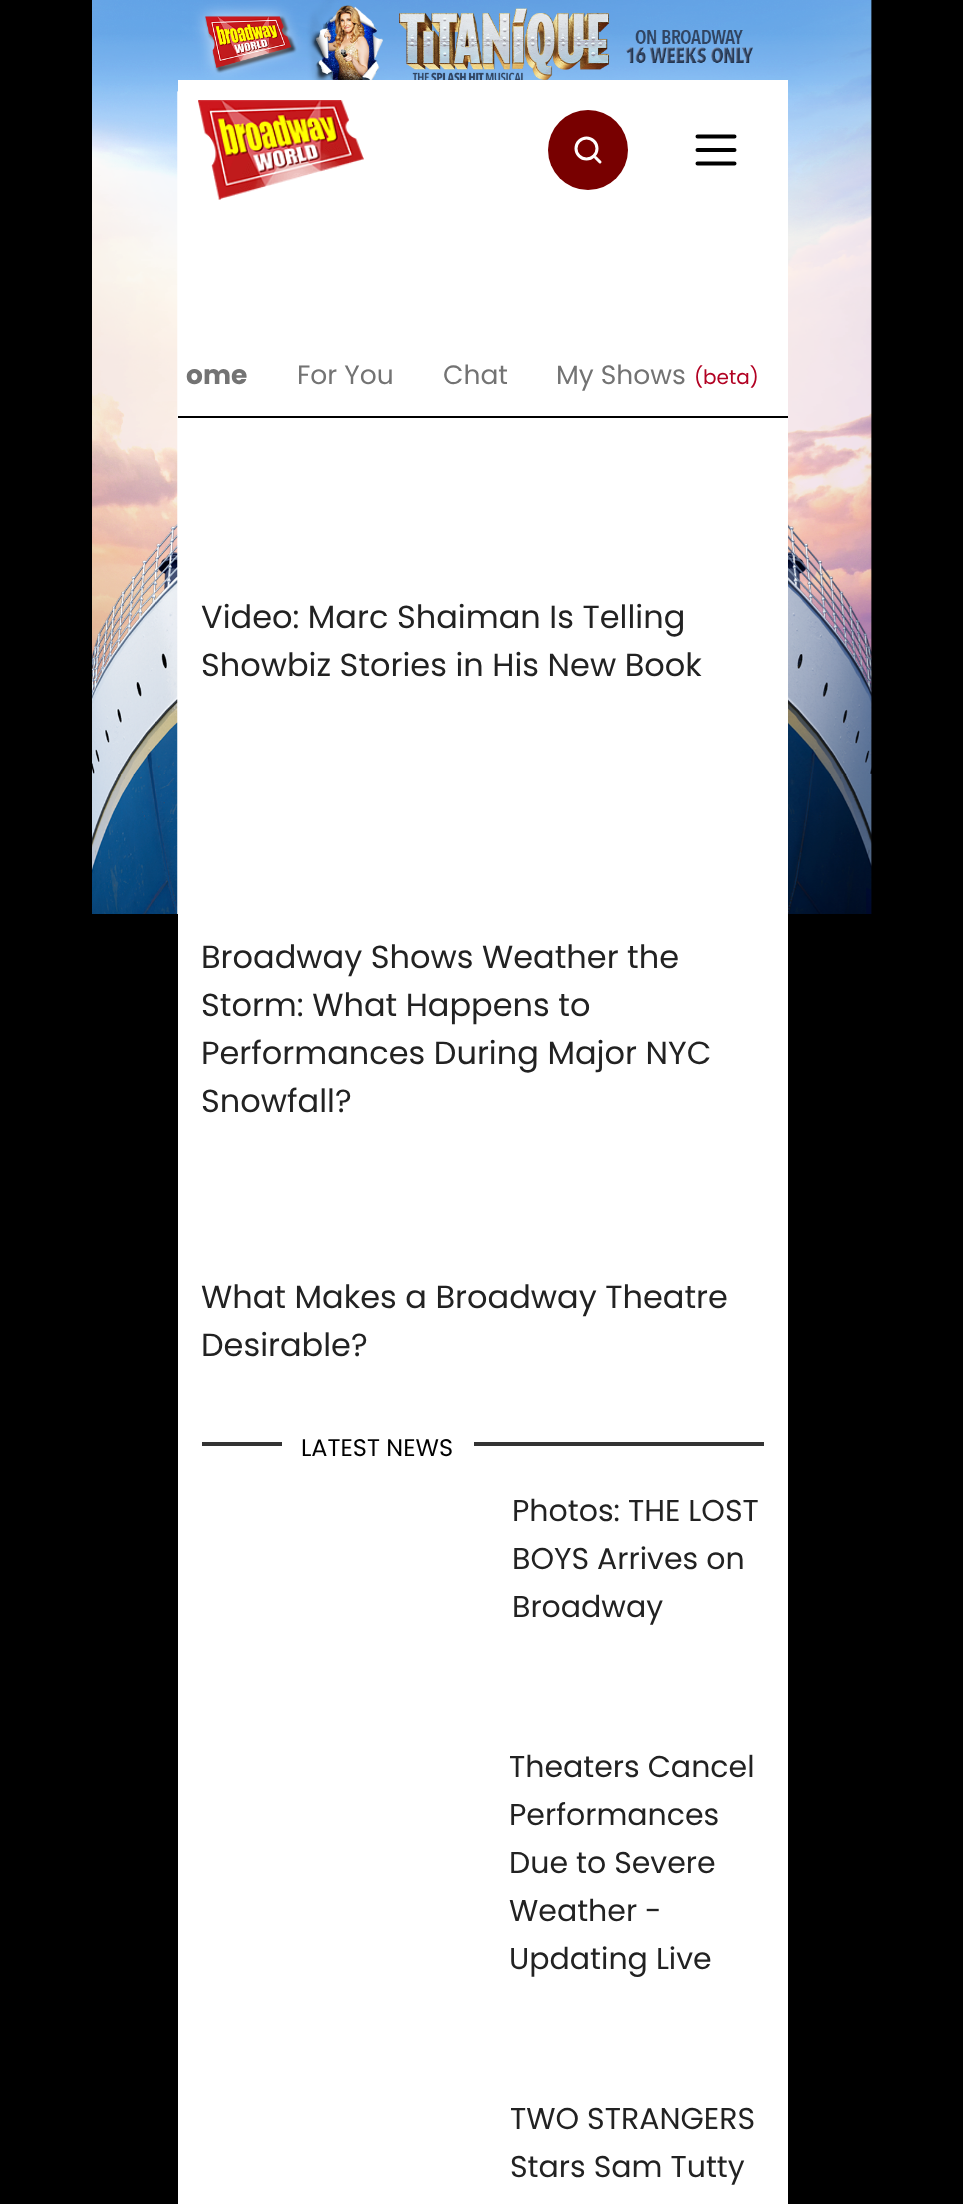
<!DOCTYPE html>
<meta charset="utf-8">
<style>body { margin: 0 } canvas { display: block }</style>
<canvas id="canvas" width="963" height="2204"></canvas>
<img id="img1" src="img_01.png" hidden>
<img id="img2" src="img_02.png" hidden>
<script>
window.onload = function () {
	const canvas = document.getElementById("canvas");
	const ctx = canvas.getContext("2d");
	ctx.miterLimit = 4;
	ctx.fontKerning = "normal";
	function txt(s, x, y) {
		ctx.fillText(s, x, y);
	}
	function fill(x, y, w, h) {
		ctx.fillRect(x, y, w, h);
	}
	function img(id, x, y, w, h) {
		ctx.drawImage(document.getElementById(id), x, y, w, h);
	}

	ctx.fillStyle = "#000000";
	fill(0, 0, 963, 2204);
	img("img1", 92, 0, 780, 914);
	ctx.fillStyle = "#FFFFFF";
	fill(178, 80, 610, 2124);
	img("img2", 198, 100, 166, 100);
	ctx.fillStyle = "#780000";
	ctx.beginPath();
	ctx.arc(588, 150, 40, 0, Math.PI * 2);
	ctx.fill();
	ctx.beginPath();
	ctx.arc(586.5, 148.5, 10.5, 0, Math.PI * 2);
	ctx.strokeStyle = "#FFFFFF";
	ctx.lineWidth = 3;
	ctx.stroke();
	ctx.beginPath();
	ctx.moveTo(600, 162);
	ctx.lineTo(595.5, 157.5);
	ctx.lineCap = "round";
	ctx.stroke();
	ctx.beginPath();
	ctx.moveTo(697.5, 136.5);
	ctx.lineTo(734.5, 136.5);
	ctx.moveTo(697.5, 150);
	ctx.lineTo(734.5, 150);
	ctx.moveTo(697.5, 163.5);
	ctx.lineTo(734.5, 163.5);
	ctx.strokeStyle = "#000000";
	ctx.lineWidth = 4;
	ctx.stroke();
	ctx.fillStyle = "#000000";
	fill(178, 416, 610, 2);
	ctx.fillStyle = "#333333";
	fill(202, 1442, 562, 4);
	ctx.fillStyle = "#FFFFFF";
	fill(282, 1442, 192, 4);
	ctx.font = "bold 26.5px Poppins";
	ctx.fillStyle = "#737373";
	txt("ome", 186, 384);
	ctx.font = "26.5px Poppins";
	txt("For You", 297, 384);
	txt("Chat", 443, 384);
	txt("My Shows", 556, 384);
	ctx.font = "20px Poppins";
	ctx.fillStyle = "#B20223";
	txt("(beta)", 694, 384);
	ctx.font = "32px Poppins";
	ctx.fillStyle = "#222222";
	txt("Video: Marc Shaiman Is Telling", 201, 628);
	txt("Showbiz Stories in His New Book", 201, 676);
	txt("Broadway Shows Weather the", 201, 968);
	txt("Storm: What Happens to", 201, 1016);
	txt("Performances During Major NYC", 201, 1064);
	txt("Snowfall?", 201, 1112);
	txt("What Makes a Broadway Theatre", 201, 1308);
	txt("Desirable?", 201, 1356);
	ctx.font = "24px Poppins";
	ctx.fillStyle = "#000000";
	txt("LATEST NEWS", 301, 1456);
	ctx.font = "30px Poppins";
	ctx.fillStyle = "#222222";
	txt("Photos: THE LOST", 512, 1521);
	txt("BOYS Arrives on", 512, 1569);
	txt("Broadway", 512, 1617);
	txt("Theaters Cancel", 509, 1777);
	txt("Performances", 509, 1825);
	txt("Due to Severe", 509, 1873);
	txt("Weather -", 509, 1921);
	txt("Updating Live", 509, 1969);
	txt("TWO STRANGERS", 510, 2129);
	txt("Stars Sam Tutty", 510, 2177);
};
</script>
